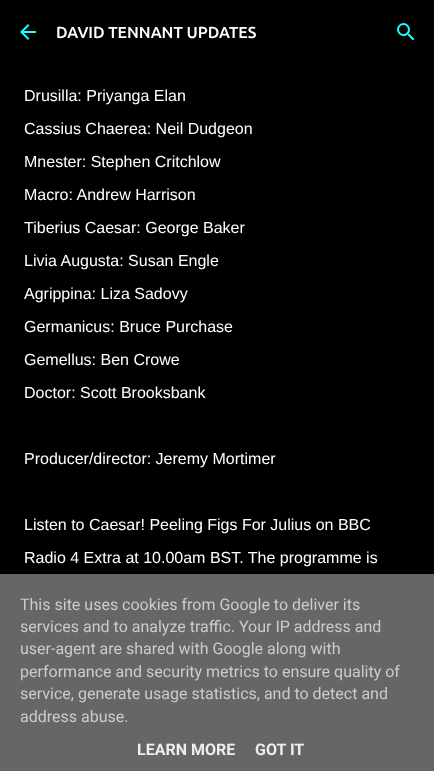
<!DOCTYPE html>
<meta charset="utf-8">
<style>body { margin: 0 } canvas { display: block }</style>
<canvas id="canvas" width="434" height="771"></canvas>
<img id="img1" src="img_01.png" hidden>
<img id="img2" src="img_02.png" hidden>
<script>
window.onload = function () {
	const canvas = document.getElementById("canvas");
	const ctx = canvas.getContext("2d");
	ctx.miterLimit = 4;
	ctx.fontKerning = "normal";
	function txt(s, x, y) {
		ctx.fillText(s, x, y);
	}
	function fill(x, y, w, h) {
		ctx.fillRect(x, y, w, h);
	}
	function img(id, x, y, w, h) {
		ctx.drawImage(document.getElementById(id), x, y, w, h);
	}

	ctx.fillStyle = "#000000";
	fill(0, 0, 434, 771);
	img("img1", 20, 24, 16, 16);
	img("img2", 397, 23, 18, 18);
	ctx.fillStyle = "#666666";
	fill(0, 574, 434, 197);
	ctx.font = "500 16px Ubuntu";
	ctx.fillStyle = "#FFFFFF";
	txt("DAVID TENNANT UPDATES", 56, 38);
	ctx.font = "16px Liberation Sans";
	txt("Drusilla: Priyanga Elan", 24, 101);
	txt("Cassius Chaerea: Neil Dudgeon", 24, 134);
	txt("Mnester: Stephen Critchlow", 24, 167);
	txt("Macro: Andrew Harrison", 24, 200);
	txt("Tiberius Caesar: George Baker", 24, 233);
	txt("Livia Augusta: Susan Engle", 24, 266);
	txt("Agrippina: Liza Sadovy", 24, 299);
	txt("Germanicus: Bruce Purchase", 24, 332);
	txt("Gemellus: Ben Crowe", 24, 365);
	txt("Doctor: Scott Brooksbank", 24, 398);
	txt("Producer/director: Jeremy Mortimer", 24, 464);
	txt("Listen to Caesar! Peeling Figs For Julius on BBC", 24, 530);
	txt("Radio 4 Extra at 10.00am BST. The programme is", 24, 563);
	ctx.font = "16px Roboto";
	ctx.fillStyle = "#CCCCCC";
	txt("This site uses cookies from Google to deliver its", 20, 610);
	txt("services and to analyze traffic. Your IP address and", 20, 632);
	txt("user-agent are shared with Google along with", 20, 654);
	txt("performance and security metrics to ensure quality of", 20, 677);
	txt("service, generate usage statistics, and to detect and", 20, 699);
	txt("address abuse.", 20, 722);
	ctx.font = "bold 16px Roboto";
	ctx.fillStyle = "#EEEEEE";
	txt("LEARN MORE", 137, 755);
	txt("GOT IT", 255, 755);
};
</script>
